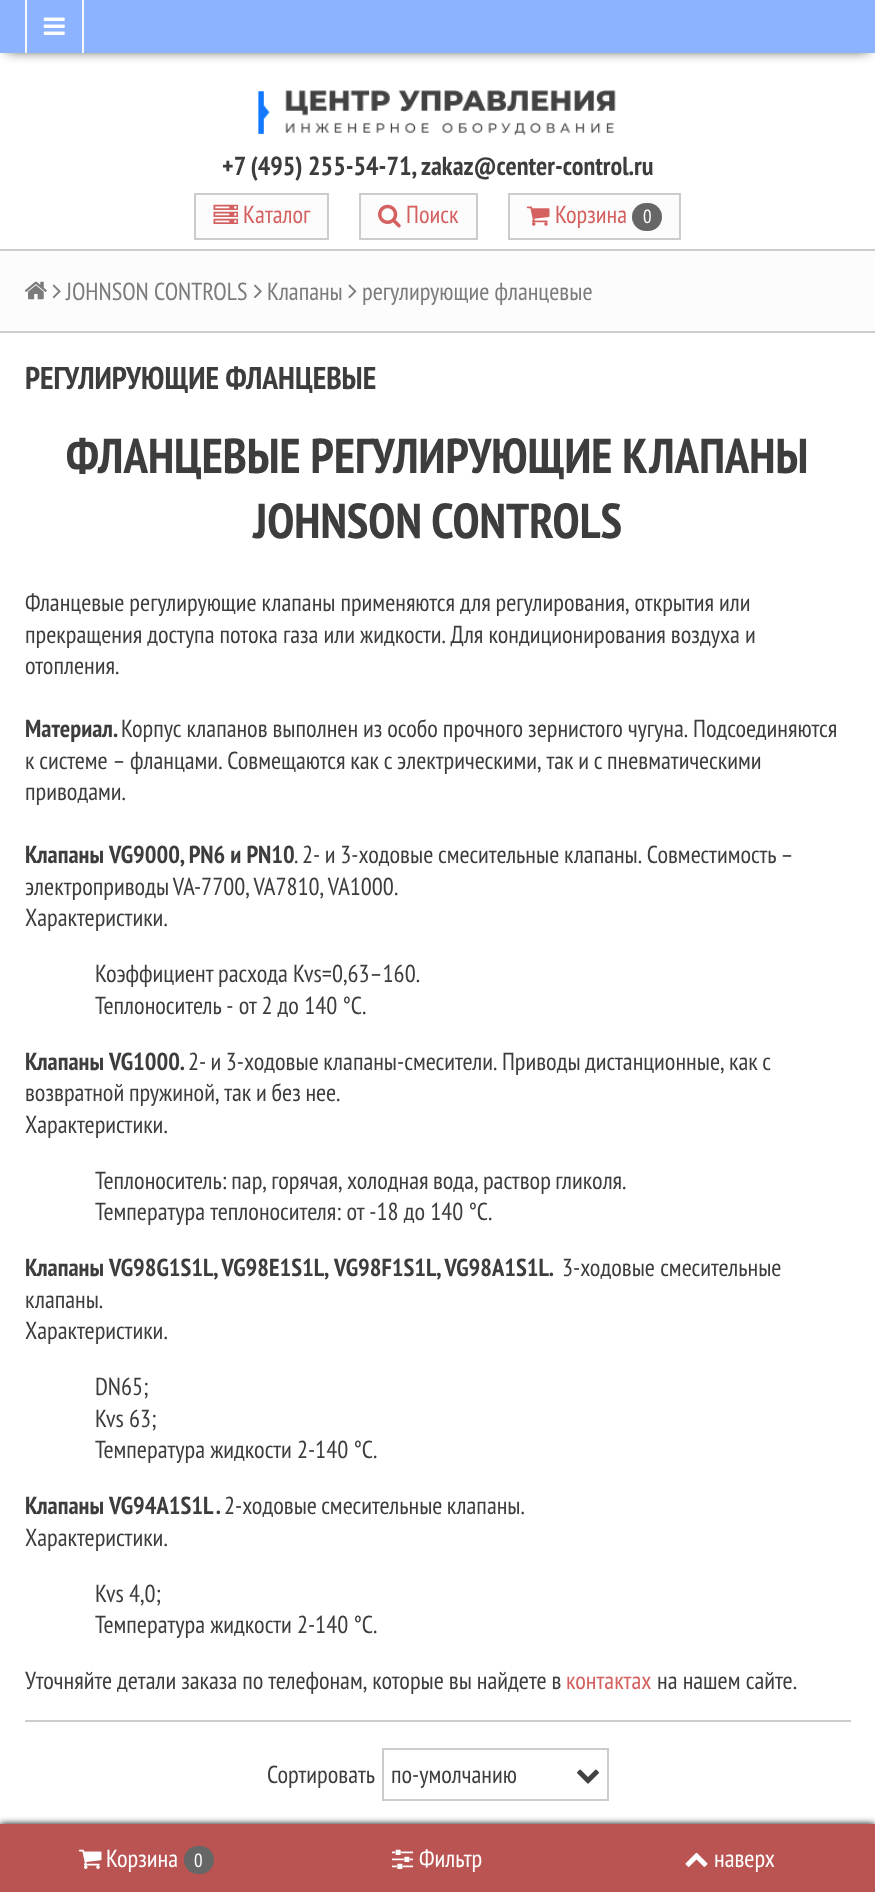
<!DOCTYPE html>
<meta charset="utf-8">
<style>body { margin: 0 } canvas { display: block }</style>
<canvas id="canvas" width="875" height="1892"></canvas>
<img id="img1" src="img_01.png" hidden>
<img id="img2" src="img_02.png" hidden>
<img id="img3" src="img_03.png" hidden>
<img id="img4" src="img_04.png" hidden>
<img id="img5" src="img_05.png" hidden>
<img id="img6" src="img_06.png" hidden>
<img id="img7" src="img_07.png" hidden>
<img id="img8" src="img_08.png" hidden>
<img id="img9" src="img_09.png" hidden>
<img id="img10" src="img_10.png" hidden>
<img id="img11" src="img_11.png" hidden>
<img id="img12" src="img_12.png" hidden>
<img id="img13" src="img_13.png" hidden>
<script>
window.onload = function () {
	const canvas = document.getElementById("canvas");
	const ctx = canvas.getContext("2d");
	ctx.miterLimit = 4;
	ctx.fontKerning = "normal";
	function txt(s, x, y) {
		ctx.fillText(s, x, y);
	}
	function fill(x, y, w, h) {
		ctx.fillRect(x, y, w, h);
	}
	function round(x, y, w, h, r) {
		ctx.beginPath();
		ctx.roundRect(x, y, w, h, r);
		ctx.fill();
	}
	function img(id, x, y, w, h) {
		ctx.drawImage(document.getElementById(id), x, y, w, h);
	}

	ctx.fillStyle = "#FFFFFF";
	fill(0, 0, 875, 1892);
	ctx.fillStyle = "#000000";
	ctx.filter = "blur(7px)";
	ctx.beginPath();
	ctx.rect(7, 11, 861, 38);
	ctx.fill();
	ctx.filter = "none";
	ctx.fillStyle = "#8CB3FF";
	fill(0, 0, 875, 53);
	ctx.fillStyle = "#F7F7F7";
	fill(82, 0, 2, 53);
	fill(25, 0, 2, 53);
	img("img1", 43, 17, 22, 18);
	img("img2", 258, 90, 358, 46);
	ctx.fillStyle = "#FCFCFC";
	ctx.beginPath();
	ctx.rect(195, 194, 133, 45);
	ctx.fill();
	ctx.strokeStyle = "#CCCCCC";
	ctx.lineWidth = 2;
	ctx.stroke();
	img("img3", 213, 204, 25, 20);
	ctx.beginPath();
	ctx.rect(360, 194, 117, 45);
	ctx.fill();
	ctx.stroke();
	img("img4", 378, 204, 23, 24);
	ctx.beginPath();
	ctx.rect(509, 194, 171, 45);
	ctx.fill();
	ctx.stroke();
	img("img5", 526, 206, 24, 20);
	ctx.fillStyle = "#666666";
	round(632, 203, 30, 28, 14);
	ctx.fillStyle = "#FCFCFC";
	fill(0, 251, 875, 80);
	ctx.fillStyle = "#CCCCCC";
	fill(0, 249, 875, 2);
	fill(0, 331, 875, 2);
	img("img6", 24, 281, 23, 19);
	img("img7", 52, 284, 9, 15);
	img("img8", 254, 284, 8, 15);
	img("img9", 348, 284, 9, 15);
	fill(25, 1720, 826, 2);
	ctx.strokeRect(383, 1749, 225, 51);
	img("img10", 577, 1769, 22, 15);
	ctx.fillStyle = "#000000";
	ctx.filter = "blur(3.5px)";
	ctx.beginPath();
	ctx.rect(0, 1824, 875, 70);
	ctx.fill();
	ctx.filter = "none";
	ctx.fillStyle = "#BA5453";
	fill(0, 1824, 875, 68);
	img("img11", 78, 1849, 24, 20);
	ctx.fillStyle = "#666666";
	round(184, 1846, 30, 28, 14);
	img("img12", 392, 1849, 21, 20);
	img("img13", 685, 1852, 23, 15);
	ctx.font = "bold 26.25px PT Sans Narrow";
	ctx.fillStyle = "#3D3D3D";
	txt("+7 (495) 255-54-71, zakaz@center-control.ru", 222, 175);
	ctx.font = "24.5px PT Sans Narrow";
	ctx.fillStyle = "#D4605F";
	txt("Каталог", 243, 223);
	txt("Поиск", 406, 223);
	txt("Корзина", 555, 223);
	ctx.font = "19px PT Sans Narrow";
	ctx.fillStyle = "#FFFFFF";
	txt("0", 643, 223);
	ctx.font = "24.5px PT Sans Narrow";
	ctx.fillStyle = "#7B7B7B";
	txt("JOHNSON CONTROLS", 66, 300);
	txt("Клапаны", 267, 300);
	txt("регулирующие фланцевые", 362, 300);
	ctx.font = "bold 31.5px PT Sans Narrow";
	ctx.fillStyle = "#3D3D3D";
	txt("РЕГУЛИРУЮЩИЕ ФЛАНЦЕВЫЕ", 25, 389);
	ctx.font = "bold 49px PT Sans Narrow";
	txt("ФЛАНЦЕВЫЕ РЕГУЛИРУЮЩИЕ КЛАПАНЫ", 66, 473);
	txt("JOHNSON CONTROLS", 253, 538);
	ctx.wordSpacing = "-0.25px";
	ctx.font = "24.5px PT Sans Narrow";
	txt("Фланцевые регулирующие клапаны применяются для регулирования, открытия или", 25, 611);
	ctx.wordSpacing = "-0.1px";
	txt("прекращения доступа потока газа или жидкости. Для кондиционирования воздуха и", 25, 643);
	ctx.wordSpacing = "0px";
	txt("отопления.", 25, 674);
	ctx.font = "bold 24.5px PT Sans Narrow";
	txt("Материал.", 25, 737);
	ctx.wordSpacing = "-0.25px";
	ctx.font = "24.5px PT Sans Narrow";
	txt("Корпус клапанов выполнен из особо прочного зернистого чугуна. Подсоединяются", 121, 737);
	ctx.wordSpacing = "-0.5px";
	txt("к системе – фланцами. Совмещаются как с электрическими, так и с пневматическими", 25, 769);
	ctx.wordSpacing = "0px";
	txt("приводами.", 25, 800);
	ctx.font = "bold 24.5px PT Sans Narrow";
	txt("Клапаны VG9000, PN6 и PN10", 25, 863);
	ctx.font = "24.5px PT Sans Narrow";
	txt(".", 294, 863);
	ctx.wordSpacing = "-0.5px";
	txt("2- и 3-ходовые смесительные клапаны. Совместимость –", 302, 863);
	ctx.wordSpacing = "-1.5px";
	txt("электроприводы VA-7700, VA7810, VA1000.", 25, 895);
	ctx.wordSpacing = "0px";
	txt("Характеристики.", 25, 926);
	txt("Коэффициент расхода Kvs=0,63–160.", 95, 982);
	txt("Теплоноситель - от 2 до 140 °С.", 95, 1014);
	ctx.font = "bold 24.5px PT Sans Narrow";
	txt("Клапаны VG1000.", 25, 1070);
	ctx.wordSpacing = "-0.75px";
	ctx.font = "24.5px PT Sans Narrow";
	txt("2- и 3-ходовые клапаны-смесители. Приводы дистанционные, как с", 188, 1070);
	ctx.wordSpacing = "-0.5px";
	txt("возвратной пружиной, так и без нее.", 25, 1101);
	ctx.wordSpacing = "0px";
	txt("Характеристики.", 25, 1133);
	ctx.wordSpacing = "-0.75px";
	txt("Теплоноситель: пар, горячая, холодная вода, раствор гликоля.", 95, 1189);
	ctx.wordSpacing = "0px";
	txt("Температура теплоносителя: от -18 до 140 °С.", 95, 1220);
	ctx.font = "bold 24.5px PT Sans Narrow";
	txt("Клапаны VG98G1S1L, VG98E1S1L,", 25, 1276);
	txt("VG98F1S1L, VG98A1S1L.", 334, 1276);
	ctx.font = "24.5px PT Sans Narrow";
	txt("3-ходовые смесительные", 562, 1276);
	txt("клапаны.", 25, 1308);
	txt("Характеристики.", 25, 1339);
	txt("DN65;", 95, 1395);
	txt("Kvs 63;", 95, 1427);
	txt("Температура жидкости 2-140 °C.", 95, 1458);
	ctx.font = "bold 24.5px PT Sans Narrow";
	txt("Клапаны VG94A1S1L .", 25, 1514);
	ctx.wordSpacing = "-1px";
	ctx.font = "24.5px PT Sans Narrow";
	txt("2-ходовые смесительные клапаны.", 224, 1514);
	ctx.wordSpacing = "0px";
	txt("Характеристики.", 25, 1546);
	txt("Kvs 4,0;", 95, 1602);
	txt("Температура жидкости 2-140 °C.", 95, 1633);
	ctx.wordSpacing = "-0.25px";
	txt("Уточняйте детали заказа по телефонам, которые вы найдете в", 25, 1689);
	ctx.wordSpacing = "0px";
	ctx.fillStyle = "#D4605F";
	txt("контактах", 566, 1689);
	ctx.fillStyle = "#3D3D3D";
	txt("на нашем сайте.", 657, 1689);
	txt("Сортировать", 267, 1783);
	txt("по-умолчанию", 391, 1783);
	ctx.fillStyle = "#FFFFFF";
	txt("Корзина", 106, 1867);
	ctx.font = "19px PT Sans Narrow";
	txt("0", 194, 1867);
	ctx.font = "24.5px PT Sans Narrow";
	txt("Фильтр", 419, 1867);
	txt("наверх", 714, 1867);
};
</script>
